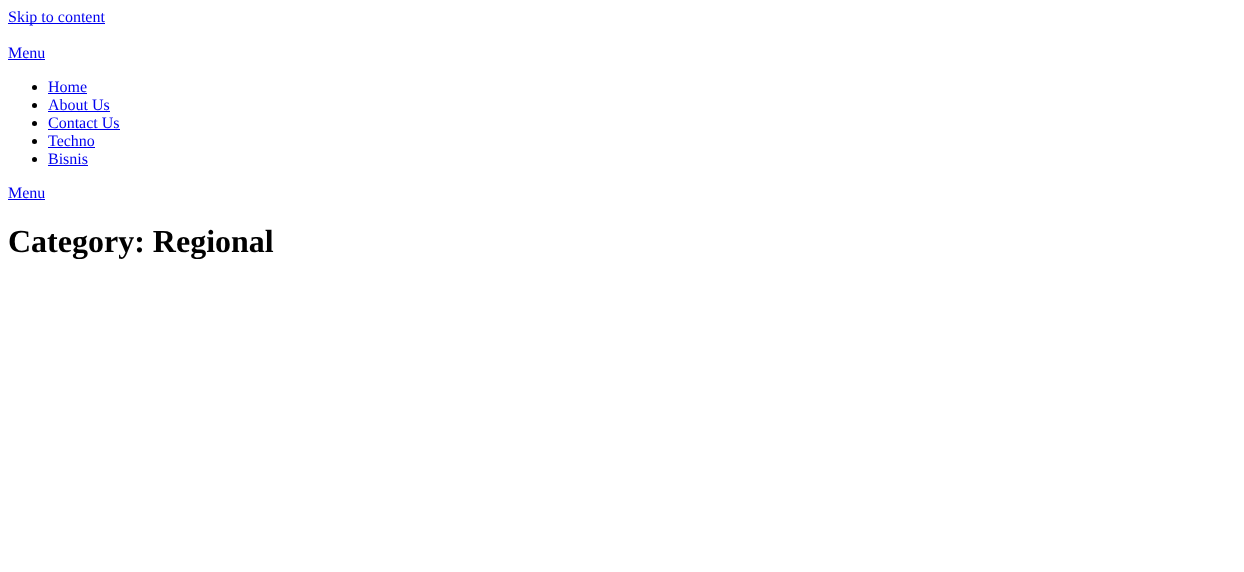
<!DOCTYPE html>
<meta charset="utf-8">
<style>body { margin: 0 } canvas { display: block }</style>
<canvas id="canvas" width="1244" height="572"></canvas>
<script>
window.onload = function () {
	const canvas = document.getElementById("canvas");
	const ctx = canvas.getContext("2d");
	ctx.miterLimit = 4;
	ctx.fontKerning = "normal";
	function txt(s, x, y) {
		ctx.fillText(s, x, y);
	}
	function fill(x, y, w, h) {
		ctx.fillRect(x, y, w, h);
	}

	ctx.fillStyle = "#FFFFFF";
	fill(0, 0, 1244, 572);
	ctx.fillStyle = "#0000EE";
	fill(8, 23, 97, 1);
	fill(8, 59, 37, 1);
	ctx.fillStyle = "#000000";
	ctx.beginPath();
	ctx.arc(34.5, 87.5, 2.5, 0, Math.PI * 2);
	ctx.fill();
	ctx.fillStyle = "#0000EE";
	fill(48, 93, 39, 1);
	ctx.fillStyle = "#000000";
	ctx.beginPath();
	ctx.arc(34.5, 105.5, 2.5, 0, Math.PI * 2);
	ctx.fill();
	ctx.fillStyle = "#0000EE";
	fill(48, 111, 62, 1);
	ctx.fillStyle = "#000000";
	ctx.beginPath();
	ctx.arc(34.5, 123.5, 2.5, 0, Math.PI * 2);
	ctx.fill();
	ctx.fillStyle = "#0000EE";
	fill(48, 129, 72, 1);
	ctx.fillStyle = "#000000";
	ctx.beginPath();
	ctx.arc(34.5, 141.5, 2.5, 0, Math.PI * 2);
	ctx.fill();
	ctx.fillStyle = "#0000EE";
	fill(48, 147, 47, 1);
	ctx.fillStyle = "#000000";
	ctx.beginPath();
	ctx.arc(34.5, 159.5, 2.5, 0, Math.PI * 2);
	ctx.fill();
	ctx.fillStyle = "#0000EE";
	fill(48, 165, 40, 1);
	fill(8, 199, 37, 1);
	ctx.font = "16px Liberation Serif";
	txt("Skip to content", 8, 22);
	txt("Menu", 8, 58);
	txt("Home", 48, 92);
	txt("About Us", 48, 110);
	txt("Contact Us", 48, 128);
	txt("Techno", 48, 146);
	txt("Bisnis", 48, 164);
	txt("Menu", 8, 198);
	ctx.font = "bold 32px Liberation Serif";
	ctx.fillStyle = "#000000";
	txt("Category: Regional", 8, 252);
};
</script>
